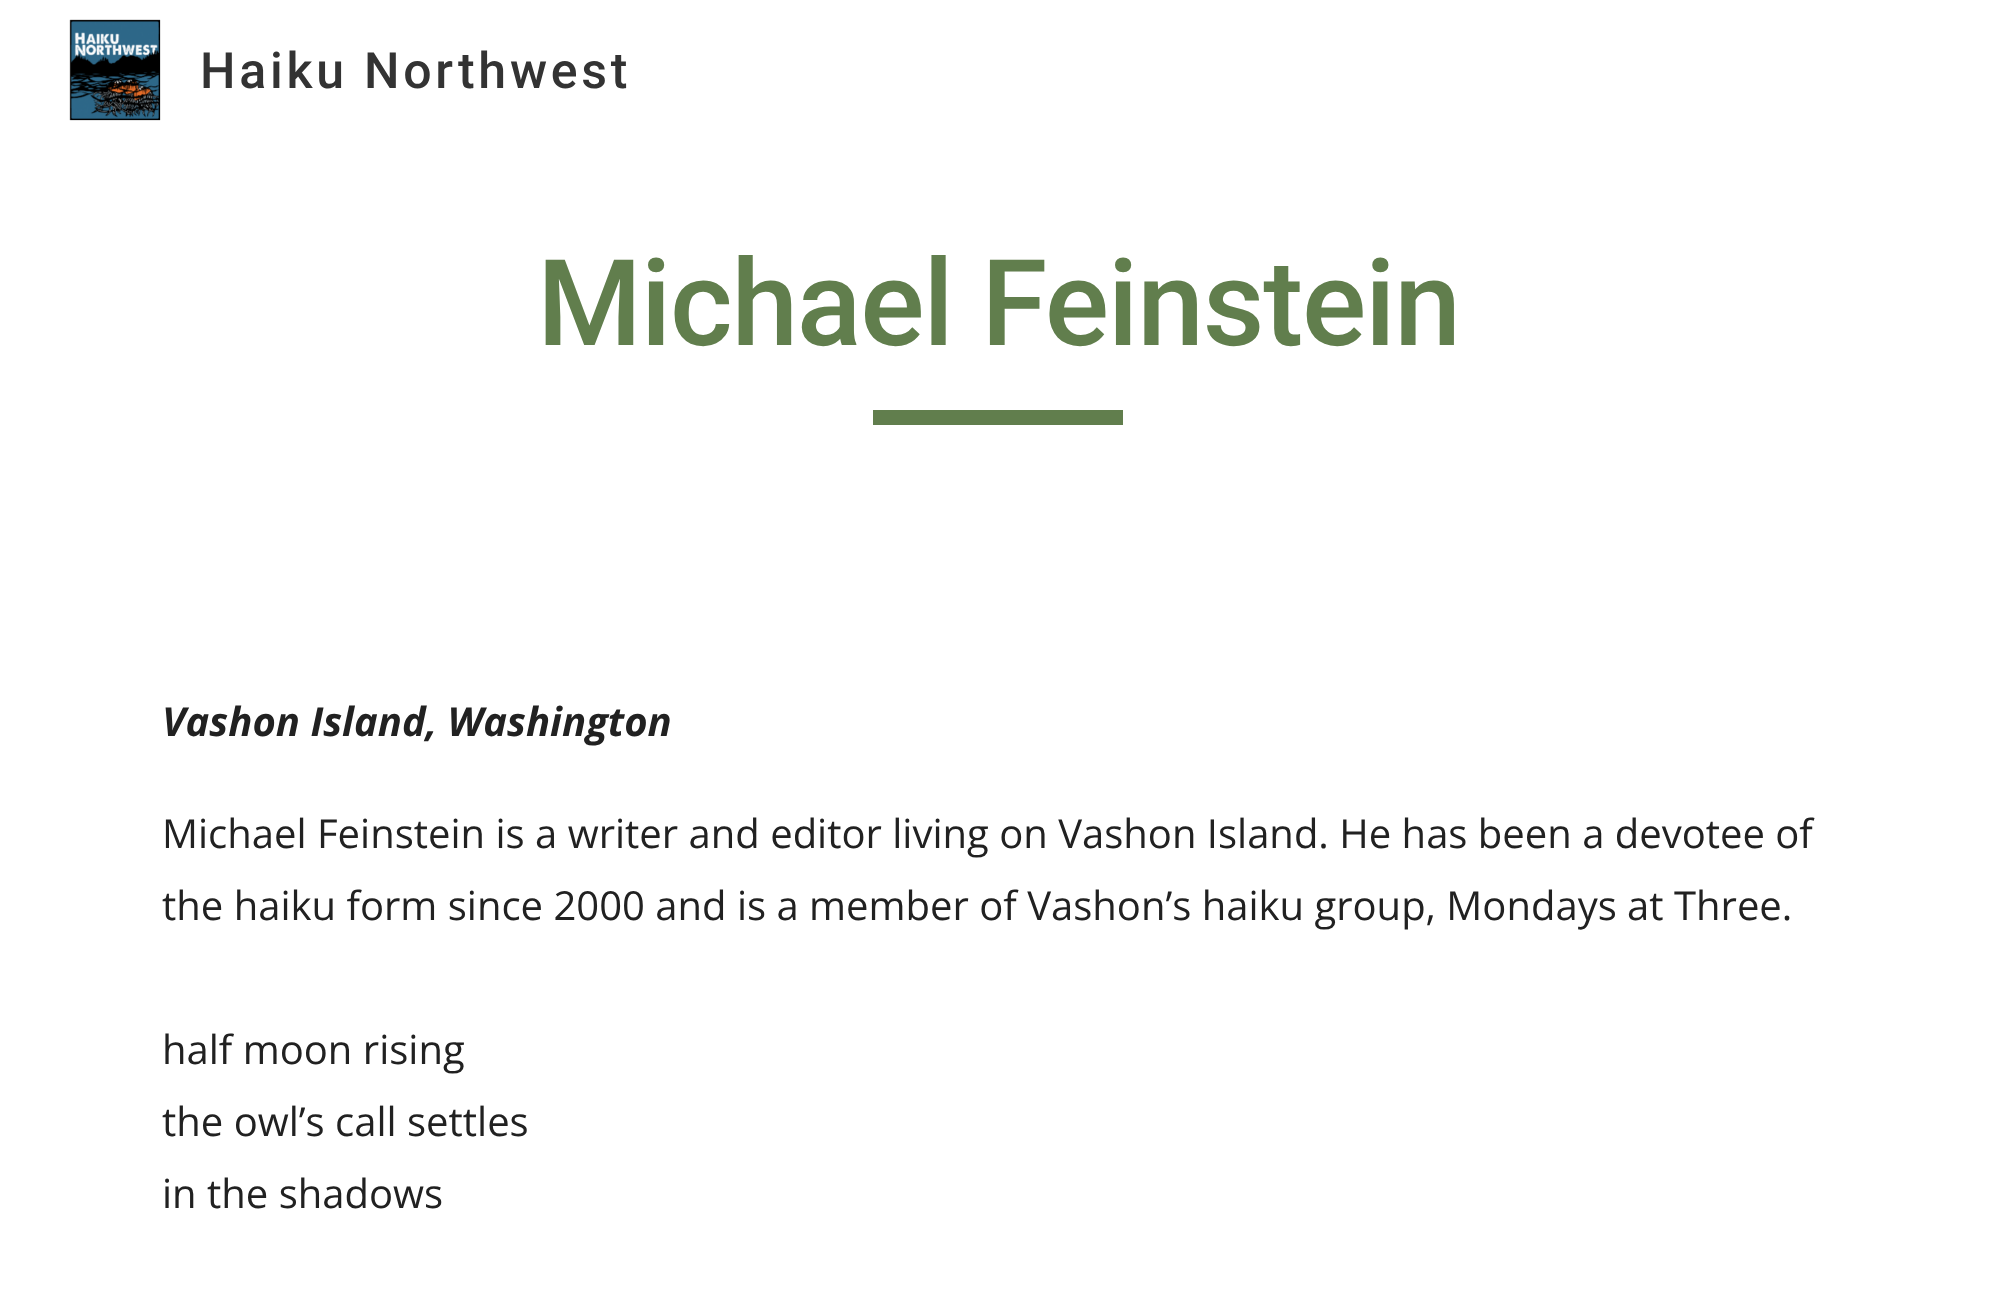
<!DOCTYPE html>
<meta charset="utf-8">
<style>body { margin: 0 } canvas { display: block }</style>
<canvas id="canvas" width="1997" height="1294"></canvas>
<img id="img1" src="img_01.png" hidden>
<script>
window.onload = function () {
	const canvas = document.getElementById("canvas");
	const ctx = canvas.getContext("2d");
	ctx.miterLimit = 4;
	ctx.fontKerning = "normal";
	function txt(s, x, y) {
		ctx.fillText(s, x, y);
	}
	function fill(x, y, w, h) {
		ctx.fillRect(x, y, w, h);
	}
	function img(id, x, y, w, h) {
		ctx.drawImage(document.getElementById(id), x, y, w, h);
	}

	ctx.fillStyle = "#FFFFFF";
	fill(0, 0, 1997, 1294);
	img("img1", 69, 19, 92, 102);
	ctx.fillStyle = "#617E4D";
	fill(873, 410, 250, 15);
	ctx.letterSpacing = "3.75px";
	ctx.font = "500 50px Roboto";
	ctx.fillStyle = "#333333";
	txt("Haiku Northwest", 200, 88);
	ctx.letterSpacing = "-1.25px";
	ctx.font = "500 120px Roboto";
	ctx.fillStyle = "#617E4D";
	txt("Michael Feinstein", 537, 345);
	ctx.letterSpacing = "0px";
	ctx.font = "italic bold 40px Open Sans";
	ctx.fillStyle = "#212121";
	txt("Vashon Island, Washington", 162, 736);
	ctx.font = "40px Open Sans";
	txt("Michael Feinstein is a writer and editor living on Vashon Island. He has been a devotee of", 162, 848);
	txt("the haiku form since 2000 and is a member of Vashon’s haiku group, Mondays at Three.", 162, 920);
	txt("half moon rising", 162, 1064);
	txt("the owl’s call settles", 162, 1136);
	txt("in the shadows", 162, 1208);
};
</script>
